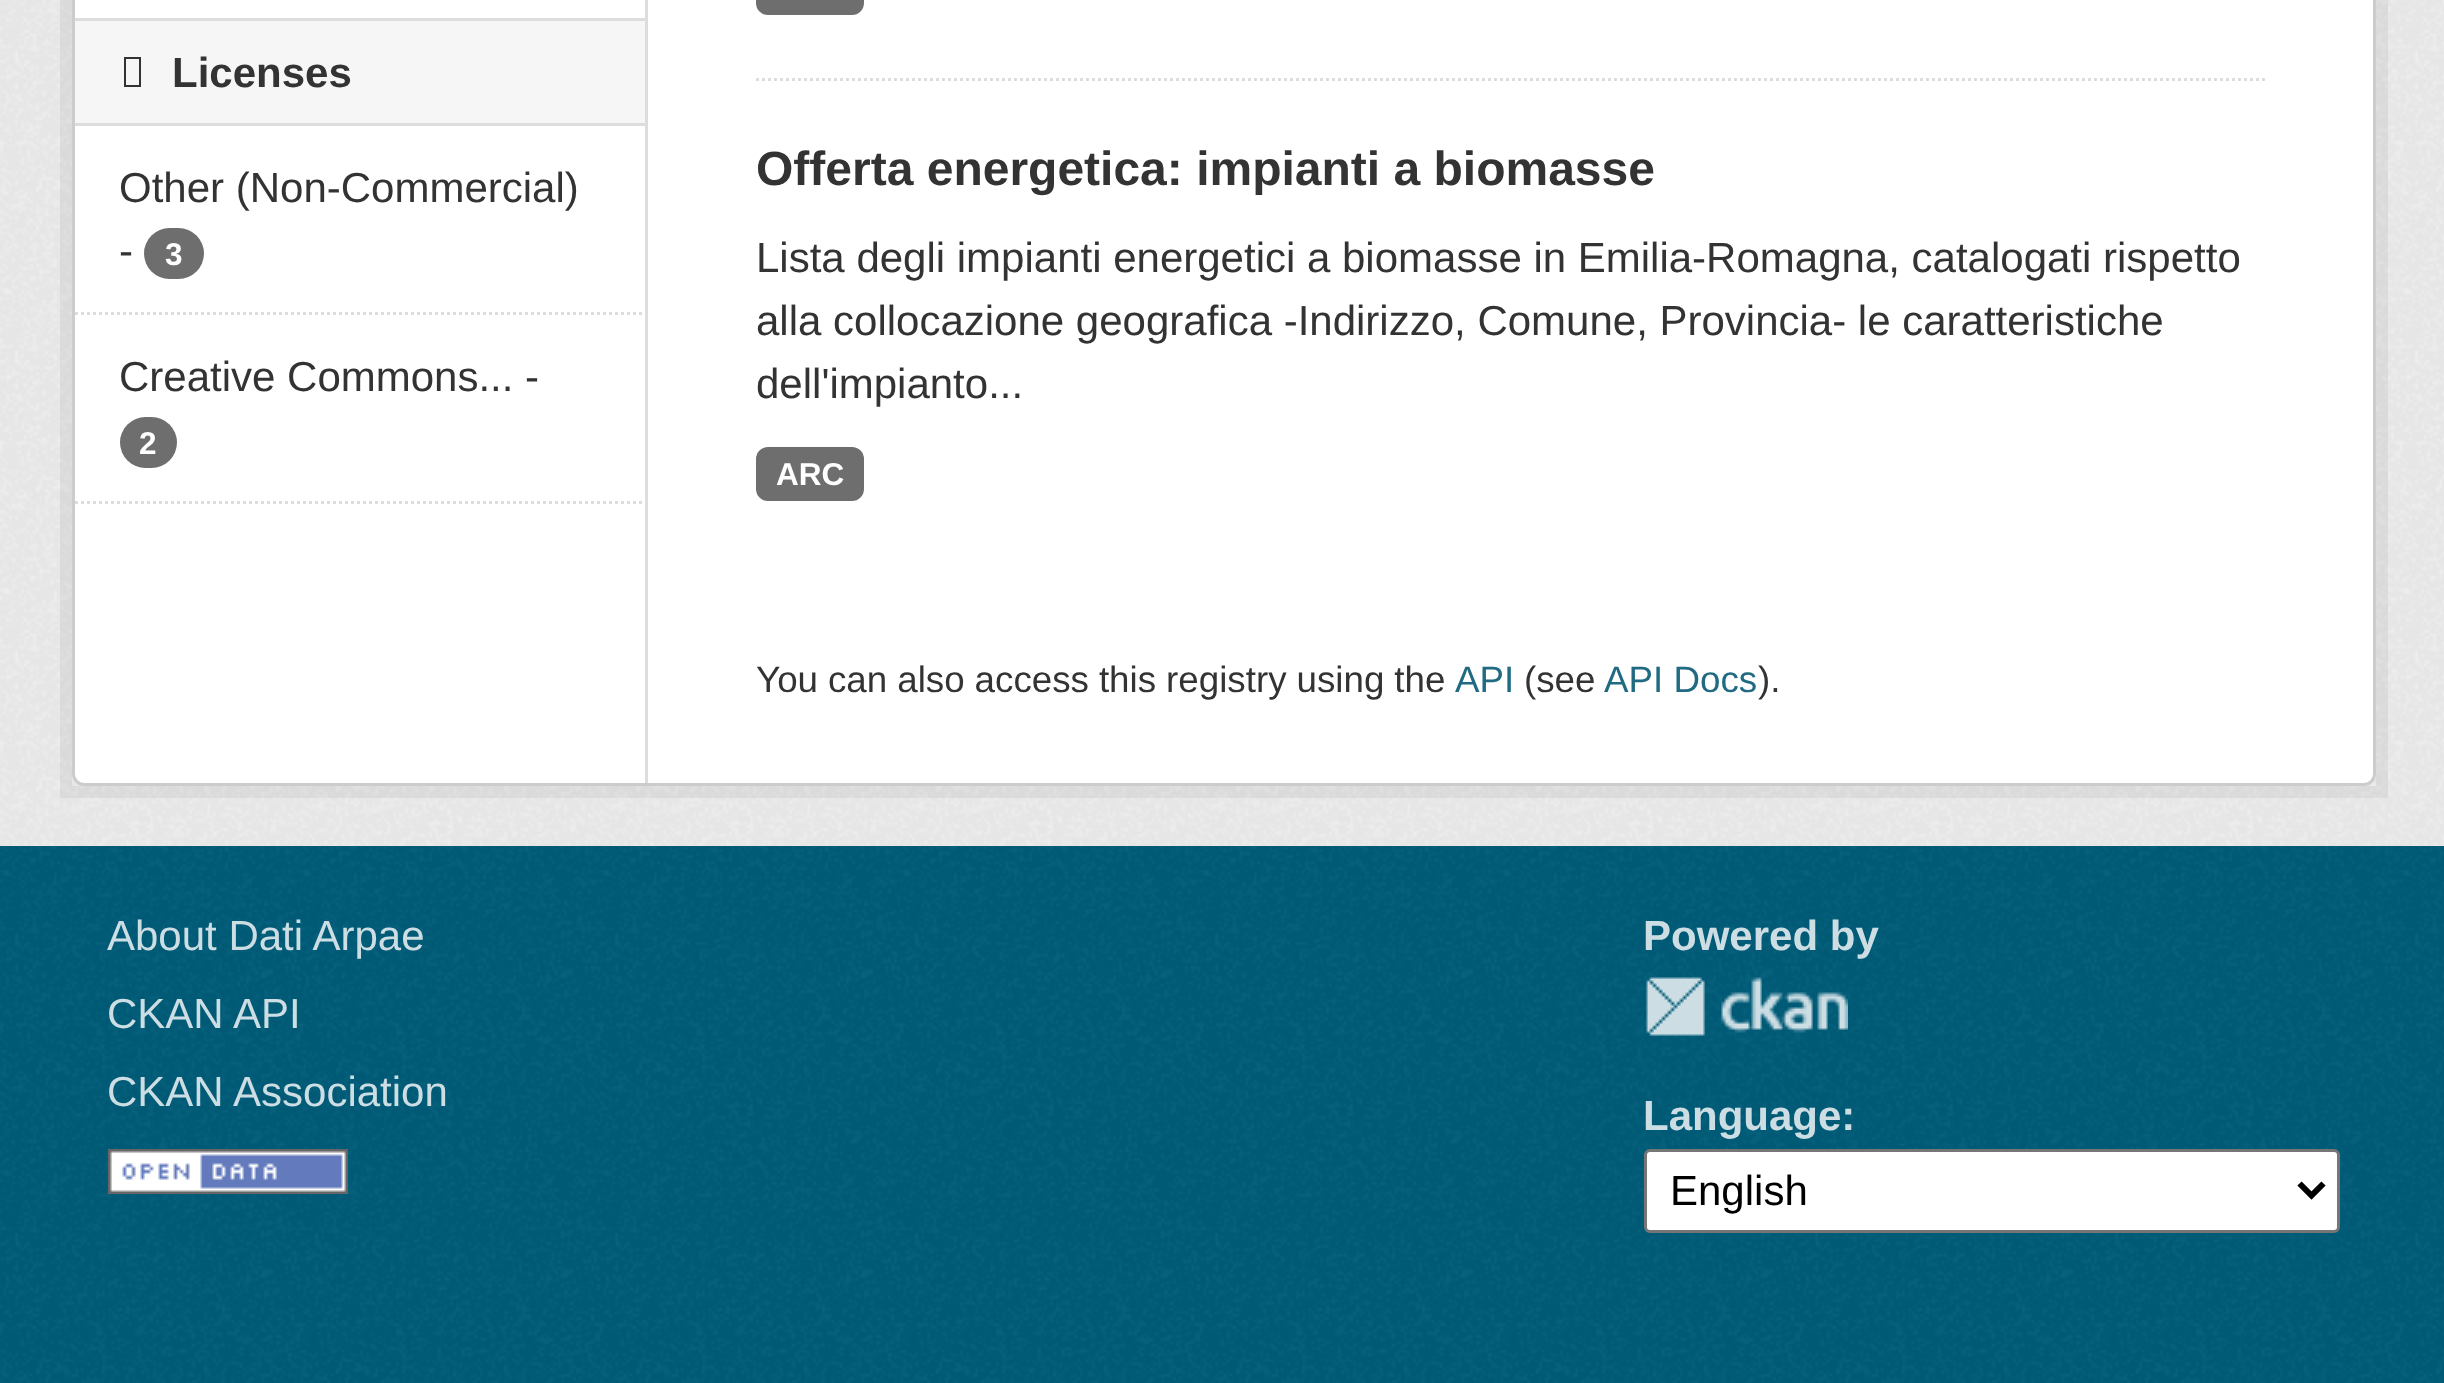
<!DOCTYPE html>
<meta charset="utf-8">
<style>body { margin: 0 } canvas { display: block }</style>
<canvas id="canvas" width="2444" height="1383"></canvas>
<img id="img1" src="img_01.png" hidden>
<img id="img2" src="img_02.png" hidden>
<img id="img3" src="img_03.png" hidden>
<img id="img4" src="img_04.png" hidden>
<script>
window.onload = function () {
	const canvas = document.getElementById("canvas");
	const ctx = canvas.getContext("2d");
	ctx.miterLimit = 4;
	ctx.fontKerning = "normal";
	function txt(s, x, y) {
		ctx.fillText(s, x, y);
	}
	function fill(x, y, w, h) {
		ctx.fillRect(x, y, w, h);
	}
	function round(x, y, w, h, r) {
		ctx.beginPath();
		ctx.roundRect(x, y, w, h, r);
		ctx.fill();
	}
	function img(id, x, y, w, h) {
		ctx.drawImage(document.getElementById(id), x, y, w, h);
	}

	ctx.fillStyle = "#005D7A";
	fill(0, 0, 2444, 1383);
	ctx.fillStyle = "#EEEEEE";
	fill(0, 0, 2444, 846);
	img("img1", 0, 0, 2444, 846);
	ctx.strokeStyle = "rgba(0, 0, 0, 0.05)";
	ctx.lineWidth = 12;
	ctx.strokeRect(66, -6, 2316, 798);
	ctx.fillStyle = "#FFFFFF";
	ctx.beginPath();
	ctx.roundRect(73.5, -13.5, 2301, 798, 10.5);
	ctx.fill();
	ctx.strokeStyle = "#CCCCCC";
	ctx.lineWidth = 3;
	ctx.stroke();
	ctx.fillStyle = "#F6F6F6";
	fill(75, 21, 570, 102);
	ctx.fillStyle = "#DDDDDD";
	fill(75, 18, 570, 3);
	fill(75, 123, 570, 3);
	ctx.fillStyle = "#333333";
	ctx.beginPath();
	ctx.moveTo(124, 87);
	ctx.lineTo(124, 57);
	ctx.lineTo(141, 57);
	ctx.lineTo(141, 87);
	ctx.closePath();
	ctx.moveTo(126, 85);
	ctx.lineTo(139, 85);
	ctx.lineTo(139, 59);
	ctx.lineTo(126, 59);
	ctx.closePath();
	ctx.fill();
	ctx.beginPath();
	ctx.moveTo(75, 313.5);
	ctx.lineTo(645, 313.5);
	ctx.strokeStyle = "#DDDDDD";
	ctx.setLineDash([3, 3]);
	ctx.stroke();
	ctx.fillStyle = "#6E6E6E";
	round(144, 228, 60, 51, 25.5);
	round(120, 417, 57, 51, 25.5);
	ctx.beginPath();
	ctx.moveTo(75, 502.5);
	ctx.lineTo(645, 502.5);
	ctx.stroke();
	ctx.fillStyle = "#DDDDDD";
	fill(645, 0, 3, 783);
	ctx.beginPath();
	ctx.moveTo(756, 79.5);
	ctx.lineTo(2265, 79.5);
	ctx.stroke();
	ctx.fillStyle = "#6E6E6E";
	round(756, -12, 108, 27, 12);
	round(756, 447, 108, 54, 12);
	img("img2", 0, 846, 2444, 537);
	img("img3", 108, 1149, 240, 45);
	img("img4", 1646, 977, 202, 59);
	ctx.fillStyle = "#FFFFFF";
	ctx.beginPath();
	ctx.roundRect(1645.5, 1150.5, 693, 81, 4.5);
	ctx.fill();
	ctx.strokeStyle = "#767676";
	ctx.setLineDash([]);
	ctx.stroke();
	ctx.beginPath();
	ctx.moveTo(2299.5, 1183.5);
	ctx.lineTo(2311.5, 1195.5);
	ctx.lineTo(2323.5, 1183.5);
	ctx.strokeStyle = "#000000";
	ctx.lineWidth = 6;
	ctx.stroke();
	ctx.font = "bold 42px Liberation Sans";
	ctx.fillStyle = "#333333";
	txt("Licenses", 172, 87);
	ctx.font = "42px Liberation Sans";
	txt("Other (Non-Commercial)", 119, 202);
	txt("-", 119, 265);
	ctx.font = "bold 31.5px Liberation Sans";
	ctx.fillStyle = "#FFFFFF";
	txt("3", 165, 265);
	ctx.font = "42px Liberation Sans";
	ctx.fillStyle = "#333333";
	txt("Creative Commons... -", 119, 391);
	ctx.font = "bold 31.5px Liberation Sans";
	ctx.fillStyle = "#FFFFFF";
	txt("2", 139, 454);
	ctx.font = "bold 48px Liberation Sans";
	ctx.fillStyle = "#333333";
	txt("Offerta energetica: impianti a biomasse", 756, 185);
	ctx.font = "42px Liberation Sans";
	txt("Lista degli impianti energetici a biomasse in Emilia-Romagna, catalogati rispetto", 756, 272);
	txt("alla collocazione geografica -Indirizzo, Comune, Provincia- le caratteristiche", 756, 335);
	txt("dell'impianto...", 756, 398);
	ctx.font = "bold 31.5px Liberation Sans";
	ctx.fillStyle = "#FFFFFF";
	txt("ARC", 776, 485);
	ctx.wordSpacing = "-0.25px";
	ctx.font = "36.75px Liberation Sans";
	ctx.fillStyle = "#333333";
	txt("You can also access this registry using the", 756, 692);
	ctx.wordSpacing = "0px";
	ctx.fillStyle = "#206B82";
	txt("API", 1455, 692);
	ctx.fillStyle = "#333333";
	txt("(see", 1524, 692);
	ctx.fillStyle = "#206B82";
	txt("API Docs", 1604, 692);
	ctx.fillStyle = "#333333";
	txt(").", 1758, 692);
	ctx.font = "42px Liberation Sans";
	ctx.fillStyle = "#CCDEE3";
	txt("About Dati Arpae", 107, 950);
	txt("CKAN API", 107, 1028);
	txt("CKAN Association", 107, 1106);
	ctx.font = "bold 42px Liberation Sans";
	txt("Powered by", 1643, 950);
	txt("Language:", 1643, 1130);
	ctx.font = "42px Liberation Sans";
	ctx.fillStyle = "#000000";
	txt("English", 1670, 1205);
};
</script>
